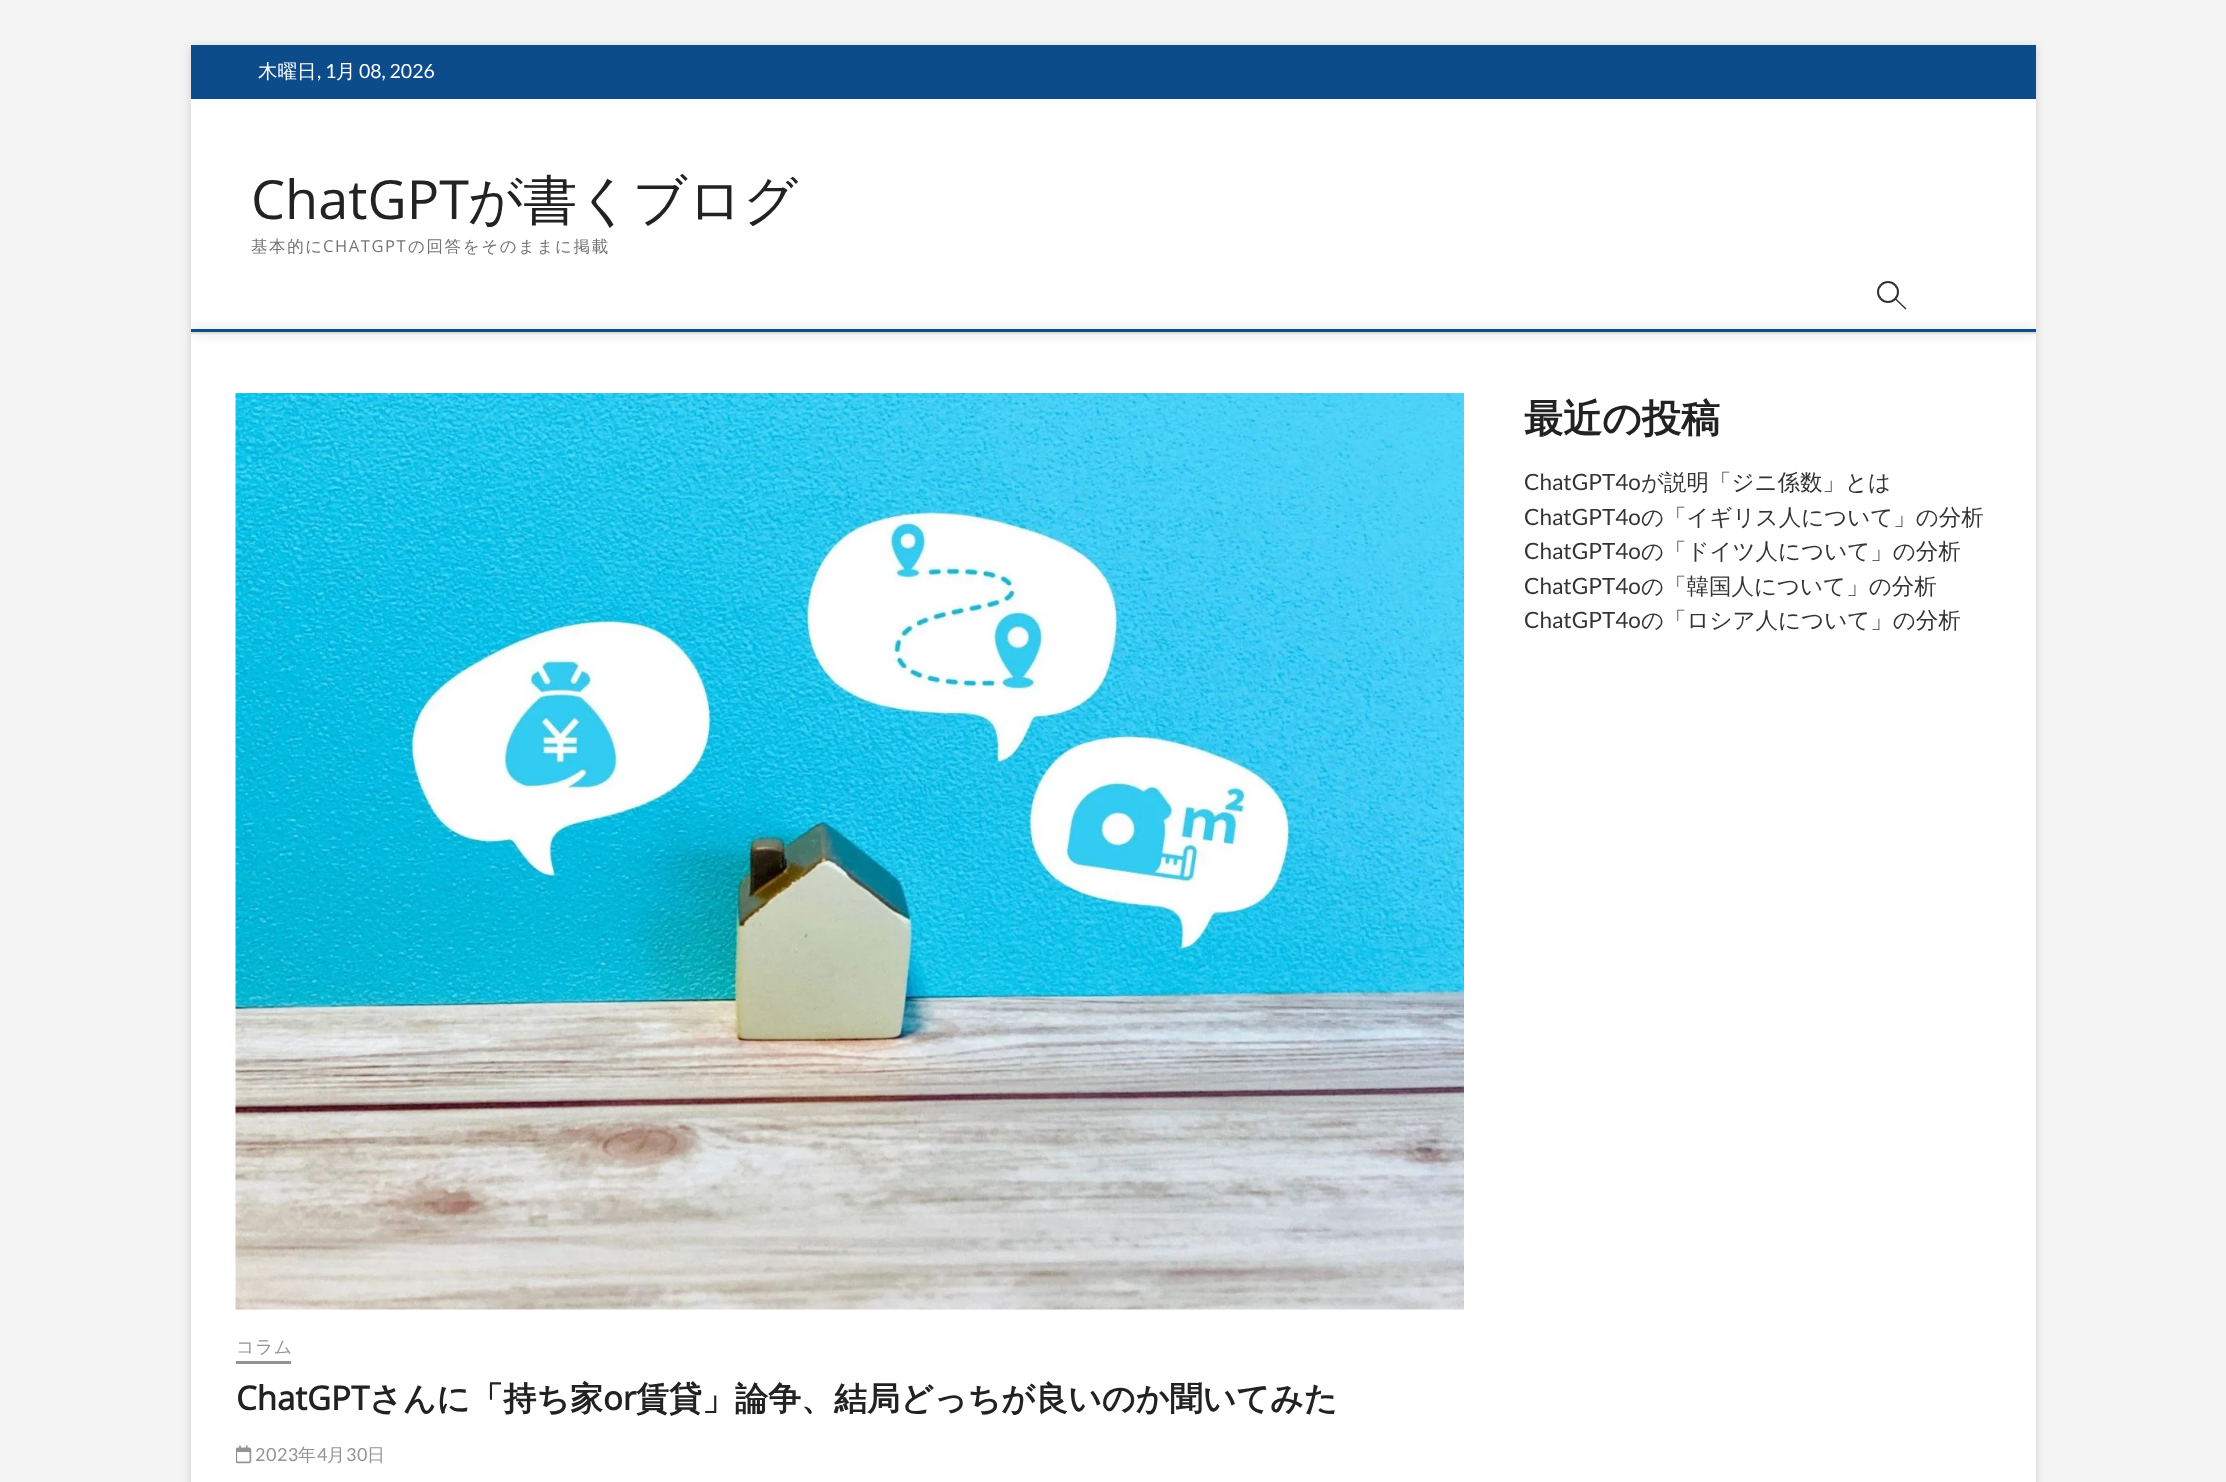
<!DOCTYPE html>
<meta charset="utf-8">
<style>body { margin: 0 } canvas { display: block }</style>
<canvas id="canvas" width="2226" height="1482"></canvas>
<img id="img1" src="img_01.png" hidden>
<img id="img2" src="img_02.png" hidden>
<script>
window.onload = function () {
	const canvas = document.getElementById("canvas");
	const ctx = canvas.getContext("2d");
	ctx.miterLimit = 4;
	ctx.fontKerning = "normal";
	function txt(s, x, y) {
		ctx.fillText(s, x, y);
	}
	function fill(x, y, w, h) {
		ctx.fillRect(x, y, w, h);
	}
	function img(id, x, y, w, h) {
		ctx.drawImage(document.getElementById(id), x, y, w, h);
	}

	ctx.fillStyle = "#F4F4F4";
	fill(0, 0, 2226, 1482);
	ctx.fillStyle = "rgba(0, 0, 0, 0.15)";
	ctx.filter = "blur(4.5px)";
	ctx.beginPath();
	ctx.rect(191, 47, 1845, 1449);
	ctx.fill();
	ctx.filter = "none";
	ctx.fillStyle = "#FFFFFF";
	fill(191, 99, 1845, 1383);
	ctx.fillStyle = "#0C4C8A";
	fill(191, 45, 1845, 54);
	ctx.save();
	ctx.beginPath();
	ctx.rect(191, 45, 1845, 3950);
	ctx.clip();
	ctx.fillStyle = "rgba(0, 0, 0, 0.15)";
	ctx.filter = "blur(6px)";
	ctx.beginPath();
	ctx.rect(191, 329, 1845, 5);
	ctx.fill();
	ctx.filter = "none";
	ctx.restore();
	fill(191, 329, 1845, 3);
	ctx.fillStyle = "#DDDDDD";
	fill(191, 332, 1845, 2);
	ctx.beginPath();
	ctx.arc(1888, 292, 10, 0, Math.PI * 2);
	ctx.strokeStyle = "#333333";
	ctx.lineWidth = 2;
	ctx.stroke();
	ctx.fillStyle = "#333333";
	ctx.beginPath();
	ctx.moveTo(1894.5, 299);
	ctx.lineTo(1895.5, 298);
	ctx.lineTo(1906.5, 308.5);
	ctx.lineTo(1905.5, 309.5);
	ctx.closePath();
	ctx.fill();
	img("img1", 235, 393, 1229, 917);
	ctx.fillStyle = "#949494";
	fill(236, 1361, 55, 3);
	img("img2", 236, 1445, 16, 19);
	ctx.font = "500 19.5px WenQuanYi Zen Hei";
	ctx.fillStyle = "#FFFFFF";
	txt("木曜日", 258, 78);
	ctx.font = "19.5px Lato";
	txt(", 1", 317, 78);
	ctx.font = "500 19.5px WenQuanYi Zen Hei";
	txt("月", 336, 78);
	ctx.font = "19.5px Lato";
	txt("08, 2026", 359, 78);
	ctx.font = "54px Open Sans";
	ctx.fillStyle = "#222222";
	txt("ChatGPT", 251, 219);
	ctx.font = "500 54px WenQuanYi Zen Hei";
	txt("が書くブログ", 468, 219);
	ctx.letterSpacing = "1.6px";
	ctx.font = "500 16.5px WenQuanYi Zen Hei";
	ctx.fillStyle = "#747474";
	txt("基本的に", 251, 252);
	ctx.font = "16.5px Open Sans";
	txt("CHATGPT", 323, 252);
	ctx.font = "500 16.5px WenQuanYi Zen Hei";
	txt("の回答をそのままに掲載", 408, 252);
	ctx.letterSpacing = "0px";
	ctx.font = "bold 39px WenQuanYi Zen Hei";
	ctx.fillStyle = "#222222";
	txt("最近の投稿", 1524, 432);
	ctx.font = "22.5px Lato";
	ctx.fillStyle = "#343434";
	txt("ChatGPT4o", 1524, 490);
	ctx.font = "500 22.5px WenQuanYi Zen Hei";
	txt("が説明「ジニ係数」とは", 1641, 490);
	ctx.font = "22.5px Lato";
	txt("ChatGPT4o", 1524, 525);
	ctx.font = "500 22.5px WenQuanYi Zen Hei";
	txt("の「イギリス人について」の分析", 1641, 525);
	ctx.font = "22.5px Lato";
	txt("ChatGPT4o", 1524, 559);
	ctx.font = "500 22.5px WenQuanYi Zen Hei";
	txt("の「ドイツ人について」の分析", 1641, 559);
	ctx.font = "22.5px Lato";
	txt("ChatGPT4o", 1524, 594);
	ctx.font = "500 22.5px WenQuanYi Zen Hei";
	txt("の「韓国人について」の分析", 1641, 594);
	ctx.font = "22.5px Lato";
	txt("ChatGPT4o", 1524, 628);
	ctx.font = "500 22.5px WenQuanYi Zen Hei";
	txt("の「ロシア人について」の分析", 1641, 628);
	ctx.letterSpacing = "0.5px";
	ctx.font = "500 18px WenQuanYi Zen Hei";
	ctx.fillStyle = "#949494";
	txt("コラム", 236, 1353);
	ctx.letterSpacing = "0px";
	ctx.font = "bold 33px Open Sans";
	ctx.fillStyle = "#222222";
	txt("ChatGPT", 236, 1410);
	ctx.font = "bold 33px WenQuanYi Zen Hei";
	txt("さんに「持ち家", 369, 1410);
	ctx.font = "bold 33px Open Sans";
	txt("or", 603, 1410);
	ctx.font = "bold 33px WenQuanYi Zen Hei";
	txt("賃貸」論争、結局どっちが良いのか聞いてみた", 636, 1410);
	ctx.letterSpacing = "0.5px";
	ctx.font = "18px Lato";
	ctx.fillStyle = "#949494";
	txt("2023", 255, 1461);
	ctx.font = "500 18px WenQuanYi Zen Hei";
	txt("年", 298, 1461);
	ctx.font = "18px Lato";
	txt("4", 317, 1461);
	ctx.font = "500 18px WenQuanYi Zen Hei";
	txt("月", 327, 1461);
	ctx.font = "18px Lato";
	txt("30", 346, 1461);
	ctx.font = "500 18px WenQuanYi Zen Hei";
	txt("日", 367, 1461);
};
</script>
